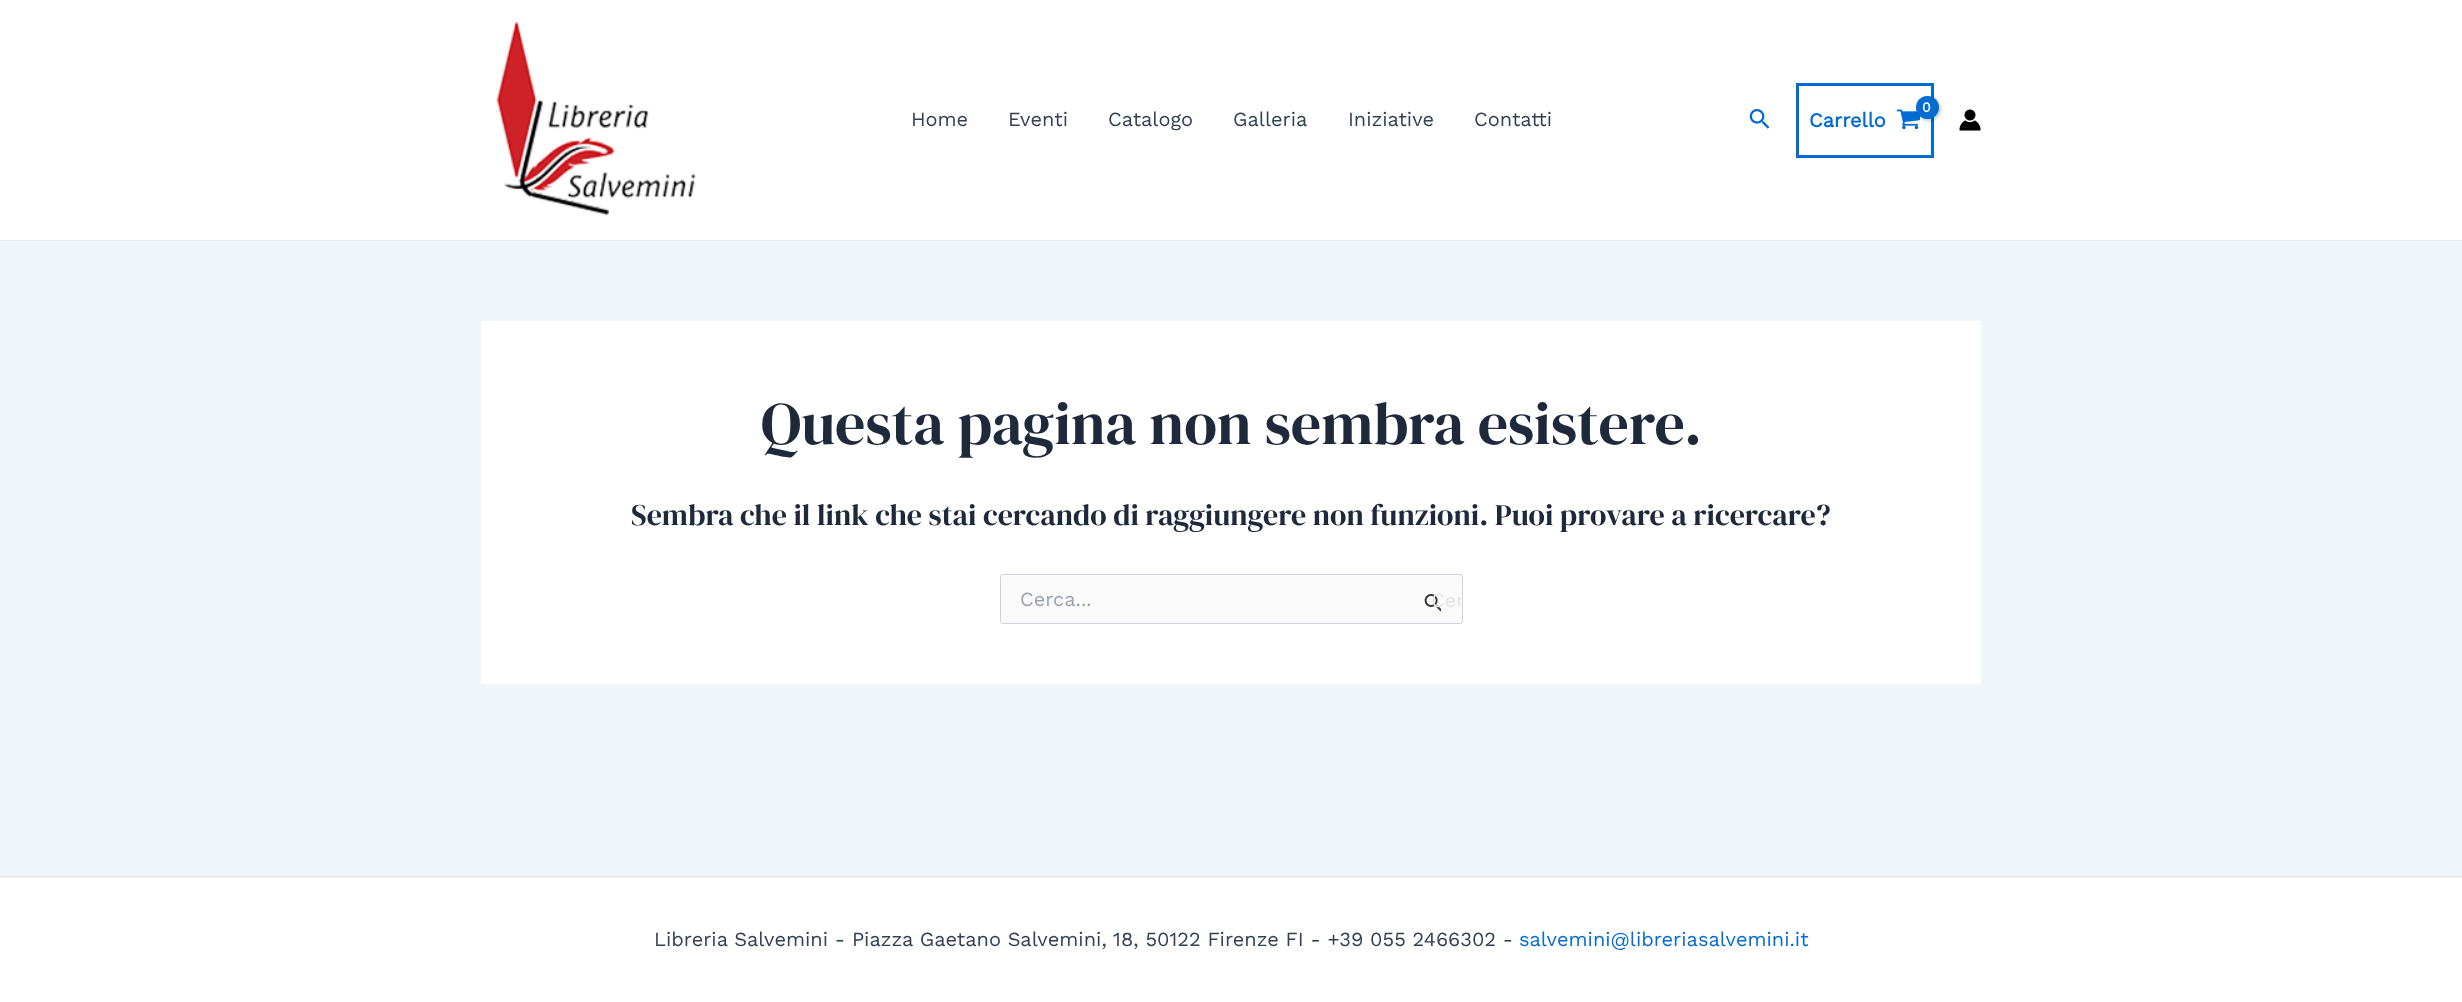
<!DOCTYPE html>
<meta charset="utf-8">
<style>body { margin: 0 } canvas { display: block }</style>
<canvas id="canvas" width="2462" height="1002"></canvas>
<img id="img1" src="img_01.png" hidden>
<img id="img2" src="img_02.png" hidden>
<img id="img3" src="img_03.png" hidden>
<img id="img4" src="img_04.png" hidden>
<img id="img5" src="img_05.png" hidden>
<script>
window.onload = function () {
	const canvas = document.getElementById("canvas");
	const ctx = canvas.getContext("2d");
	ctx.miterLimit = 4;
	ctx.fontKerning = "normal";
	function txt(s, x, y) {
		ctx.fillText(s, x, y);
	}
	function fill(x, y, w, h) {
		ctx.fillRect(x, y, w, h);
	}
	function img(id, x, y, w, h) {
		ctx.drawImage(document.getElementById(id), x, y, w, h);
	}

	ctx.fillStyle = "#F0F5FA";
	fill(0, 0, 2462, 1002);
	ctx.fillStyle = "#FFFFFF";
	fill(0, 0, 2462, 240);
	ctx.fillStyle = "#EAEAEA";
	fill(0, 240, 2462, 1);
	img("img1", 496, 21, 201, 195);
	img("img2", 1749, 109, 20, 20);
	ctx.strokeStyle = "#046BD2";
	ctx.lineWidth = 3;
	ctx.strokeRect(1797.5, 84.5, 135, 72);
	img("img3", 1896, 109, 24, 21);
	ctx.fillStyle = "rgba(0, 0, 0, 0.3)";
	ctx.filter = "blur(2px)";
	ctx.beginPath();
	ctx.roundRect(1918, 98, 22, 22, 11);
	ctx.fill();
	ctx.filter = "none";
	ctx.fillStyle = "#046BD2";
	ctx.beginPath();
	ctx.arc(1927.5, 107.5, 11.5, 0, Math.PI * 2);
	ctx.fill();
	img("img4", 1959, 109, 22, 22);
	ctx.fillStyle = "#FFFFFF";
	fill(481, 321, 1500, 363);
	ctx.fillStyle = "#FAFAFA";
	ctx.beginPath();
	ctx.roundRect(1000.5, 574.5, 462, 49, 2);
	ctx.fill();
	ctx.strokeStyle = "#D1D5DB";
	ctx.lineWidth = 1;
	ctx.stroke();
	img("img5", 1424, 594, 17, 18);
	ctx.fillStyle = "#FFFFFF";
	fill(0, 878, 2462, 124);
	ctx.fillStyle = "#EAEAEA";
	fill(0, 876, 2462, 1);
	ctx.font = "20px Work Sans";
	ctx.fillStyle = "#334155";
	txt("Home", 911, 126);
	txt("Eventi", 1008, 126);
	txt("Catalogo", 1108, 126);
	txt("Galleria", 1233, 126);
	txt("Iniziative", 1348, 126);
	txt("Contatti", 1474, 126);
	ctx.letterSpacing = "-1px";
	ctx.font = "bold 14px Work Sans";
	ctx.fillStyle = "#FFFFFF";
	txt("0", 1922, 112);
	ctx.letterSpacing = "0px";
	ctx.font = "bold 20px Work Sans";
	ctx.fillStyle = "#046BD2";
	txt("Carrello", 1809, 127);
	ctx.font = "60px DM Serif Display";
	ctx.fillStyle = "#1E293B";
	txt("Questa pagina non sembra esistere.", 761, 444);
	ctx.font = "30px DM Serif Display";
	txt("Sembra che il link che stai cercando di raggiungere non funzioni. Puoi provare a ricercare?", 631, 525);
	ctx.font = "20px Work Sans";
	ctx.fillStyle = "#9CA3AF";
	txt("Cerca...", 1020, 606);
	ctx.save();
	ctx.beginPath();
	ctx.roundRect(1406, 574, 57, 52, 2.5);
	ctx.clip();
	ctx.fillStyle = "#E6E6E6";
	txt("Cer", 1431, 607);
	ctx.restore();
	ctx.fillStyle = "#334155";
	txt("Libreria Salvemini - Piazza Gaetano Salvemini, 18, 50122 Firenze FI - +39 055 2466302 -", 654, 946);
	ctx.fillStyle = "#046BD2";
	txt("salvemini@libreriasalvemini.it", 1519, 946);
};
</script>
